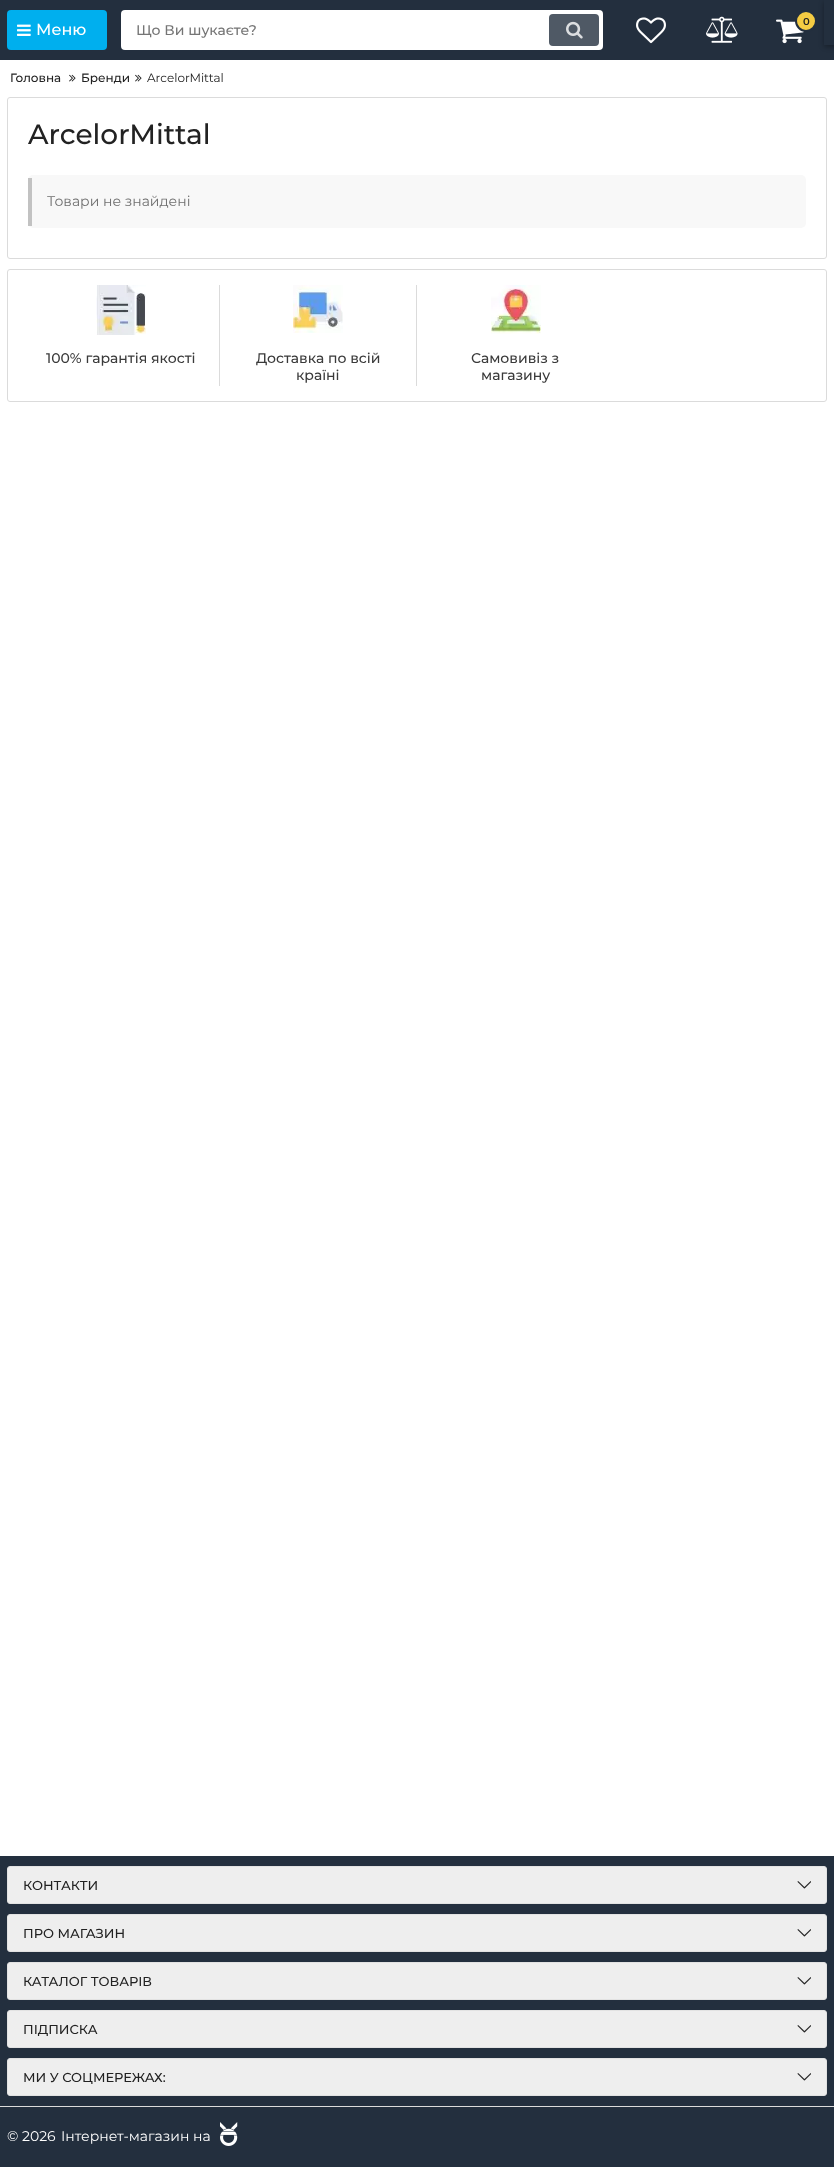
<!DOCTYPE html>
<meta charset="utf-8">
<style>body { margin: 0 } canvas { display: block }</style>
<canvas id="canvas" width="834" height="2167"></canvas>
<img id="img1" src="img_01.png" hidden>
<img id="img2" src="img_02.png" hidden>
<img id="img3" src="img_03.png" hidden>
<img id="img4" src="img_04.png" hidden>
<img id="img5" src="img_05.png" hidden>
<img id="img6" src="img_06.png" hidden>
<img id="img7" src="img_07.png" hidden>
<img id="img8" src="img_08.png" hidden>
<img id="img9" src="img_09.png" hidden>
<img id="img10" src="img_10.png" hidden>
<img id="img11" src="img_11.png" hidden>
<script>
window.onload = function () {
	const canvas = document.getElementById("canvas");
	const ctx = canvas.getContext("2d");
	ctx.miterLimit = 4;
	ctx.fontKerning = "normal";
	function txt(s, x, y) {
		ctx.fillText(s, x, y);
	}
	function fill(x, y, w, h) {
		ctx.fillRect(x, y, w, h);
	}
	function round(x, y, w, h, r) {
		ctx.beginPath();
		ctx.roundRect(x, y, w, h, r);
		ctx.fill();
	}
	function img(id, x, y, w, h) {
		ctx.drawImage(document.getElementById(id), x, y, w, h);
	}

	ctx.fillStyle = "#FFFFFF";
	fill(0, 0, 834, 2167);
	ctx.fillStyle = "#232F3E";
	fill(0, 0, 834, 60);
	img("img1", 636, 17, 30, 27);
	img("img2", 706, 16, 32, 27);
	img("img3", 776, 19, 28, 25);
	ctx.fillStyle = "#F5CC43";
	ctx.beginPath();
	ctx.arc(806, 21, 10, 0, Math.PI * 2);
	ctx.fill();
	ctx.strokeStyle = "#232F3E";
	ctx.lineWidth = 2;
	ctx.stroke();
	ctx.fillStyle = "#00AFEE";
	round(7, 10, 100, 40, 4);
	img("img4", 17, 24, 14, 12);
	ctx.fillStyle = "#FFFFFF";
	round(121, 10, 482, 40, 4);
	ctx.fillStyle = "#4F5965";
	round(549, 14, 50, 32, 4);
	img("img5", 566, 21, 17, 18);
	img("img6", 69, 74, 7, 8);
	img("img6", 135, 74, 7, 8);
	ctx.save();
	ctx.beginPath();
	ctx.moveTo(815, 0);
	ctx.lineTo(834, 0);
	ctx.lineTo(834, 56);
	ctx.lineTo(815, 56);
	ctx.closePath();
	ctx.moveTo(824, 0);
	ctx.lineTo(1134, 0);
	ctx.lineTo(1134, 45);
	ctx.lineTo(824, 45);
	ctx.closePath();
	ctx.clip("evenodd");
	ctx.fillStyle = "rgba(0, 0, 0, 0.3)";
	ctx.filter = "blur(2.5px)";
	ctx.beginPath();
	ctx.rect(824, 2, 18, 45);
	ctx.fill();
	ctx.filter = "none";
	ctx.restore();
	ctx.beginPath();
	ctx.roundRect(7.5, 97.5, 819, 161, 2.5);
	ctx.strokeStyle = "#DBDBDB";
	ctx.lineWidth = 1;
	ctx.stroke();
	ctx.fillStyle = "#F8F8F8";
	round(28, 175, 778, 53, 5);
	ctx.fillStyle = "#C2C2C2";
	fill(28, 178, 4, 48);
	ctx.beginPath();
	ctx.roundRect(7.5, 269.5, 819, 132, 2.5);
	ctx.stroke();
	ctx.fillStyle = "#DBDBDB";
	fill(219, 285, 1, 101);
	img("img7", 96, 285, 50, 50);
	fill(416, 285, 1, 101);
	img("img8", 293, 285, 50, 48);
	img("img9", 491, 285, 50, 49);
	ctx.fillStyle = "#232F3E";
	fill(0, 1856, 834, 311);
	ctx.fillStyle = "#EEEEEE";
	ctx.beginPath();
	ctx.roundRect(7.5, 1866.5, 819, 37, 2.5);
	ctx.fill();
	ctx.strokeStyle = "#E2E2E2";
	ctx.stroke();
	img("img10", 797, 1881, 14, 8);
	ctx.beginPath();
	ctx.roundRect(7.5, 1914.5, 819, 37, 2.5);
	ctx.fill();
	ctx.stroke();
	img("img10", 797, 1929, 14, 8);
	ctx.beginPath();
	ctx.roundRect(7.5, 1962.5, 819, 37, 2.5);
	ctx.fill();
	ctx.stroke();
	img("img10", 797, 1977, 14, 8);
	ctx.beginPath();
	ctx.roundRect(7.5, 2010.5, 819, 37, 2.5);
	ctx.fill();
	ctx.stroke();
	img("img10", 797, 2025, 14, 8);
	ctx.beginPath();
	ctx.roundRect(7.5, 2058.5, 819, 37, 2.5);
	ctx.fill();
	ctx.stroke();
	img("img10", 797, 2073, 14, 8);
	ctx.fillStyle = "#DBDBDB";
	fill(0, 2106, 834, 1);
	img("img11", 220, 2122, 18, 24);
	ctx.font = "600 10px Montserrat";
	ctx.fillStyle = "#222222";
	txt("0", 803, 25);
	ctx.font = "500 16px Montserrat";
	ctx.fillStyle = "#FFFFFF";
	txt("Меню", 36, 35);
	ctx.font = "500 14px Montserrat";
	ctx.fillStyle = "#757575";
	txt("Що Ви шукаєте?", 136, 35);
	ctx.font = "500 12px Montserrat";
	ctx.fillStyle = "#222222";
	txt("Головна", 10, 82);
	txt("Бренди", 81, 82);
	ctx.font = "12px Montserrat";
	txt("ArcelorMittal", 147, 82);
	ctx.font = "500 28px Montserrat";
	txt("ArcelorMittal", 28, 144);
	ctx.font = "14px Montserrat";
	ctx.fillStyle = "#6F6F6F";
	txt("Товари не знайдені", 47, 206);
	ctx.font = "500 14px Montserrat";
	ctx.fillStyle = "#3A3A3A";
	txt("100% гарантія якості", 46, 363);
	txt("Доставка по всій", 256, 363);
	txt("країні", 296, 380);
	txt("Самовивіз з", 471, 363);
	txt("магазину", 481, 380);
	ctx.font = "500 13px Montserrat";
	ctx.fillStyle = "#222222";
	txt("КОНТАКТИ", 23, 1890);
	txt("ПРО МАГАЗИН", 23, 1938);
	txt("КАТАЛОГ ТОВАРІВ", 23, 1986);
	txt("ПІДПИСКА", 23, 2034);
	txt("МИ У СОЦМЕРЕЖАХ:", 23, 2082);
	ctx.font = "14px Montserrat";
	ctx.fillStyle = "#FFFFFF";
	txt("© 2026", 7, 2141);
	txt("Інтернет-магазин на", 61, 2141);
};
</script>
